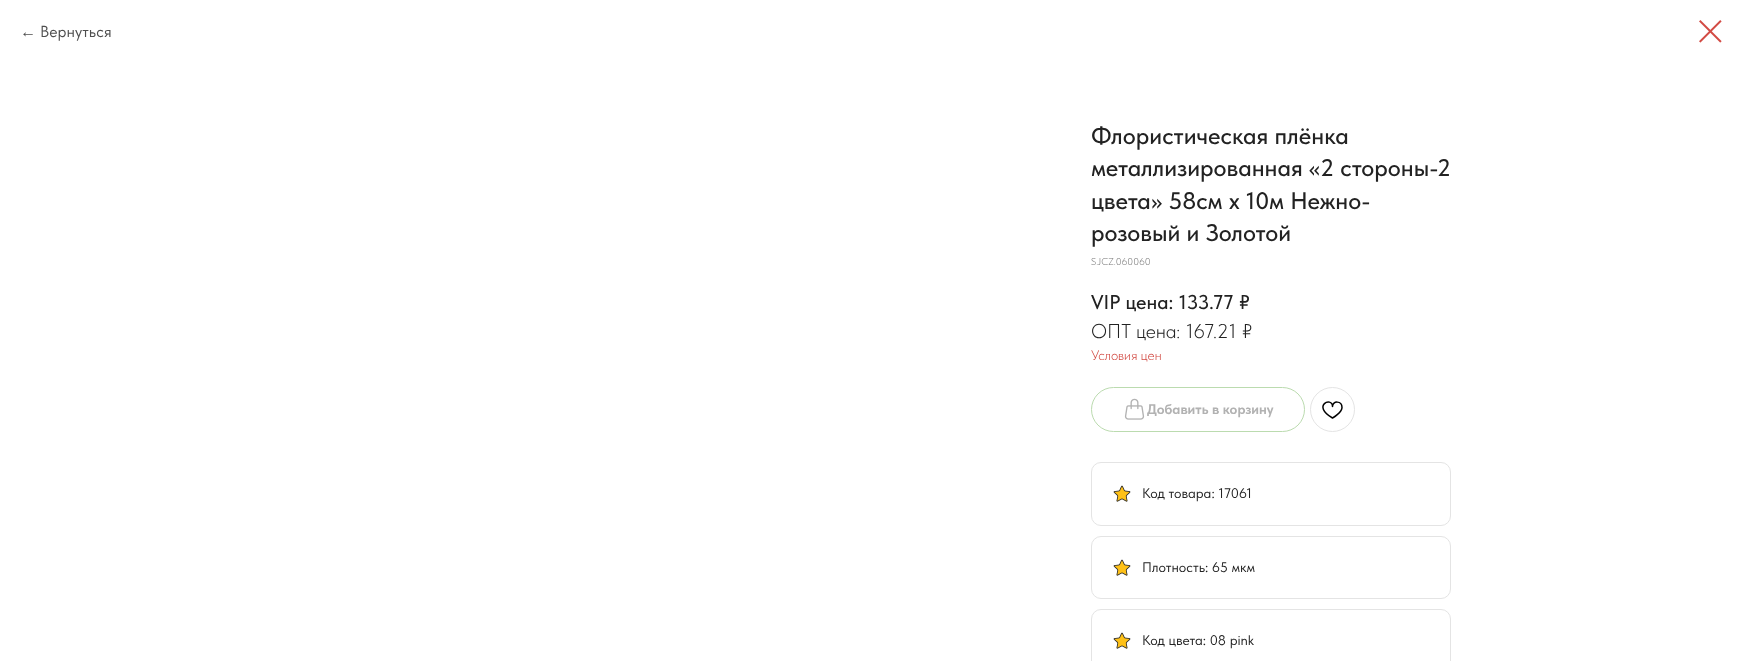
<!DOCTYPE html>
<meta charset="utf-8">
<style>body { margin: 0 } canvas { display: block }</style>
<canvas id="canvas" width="1742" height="661"></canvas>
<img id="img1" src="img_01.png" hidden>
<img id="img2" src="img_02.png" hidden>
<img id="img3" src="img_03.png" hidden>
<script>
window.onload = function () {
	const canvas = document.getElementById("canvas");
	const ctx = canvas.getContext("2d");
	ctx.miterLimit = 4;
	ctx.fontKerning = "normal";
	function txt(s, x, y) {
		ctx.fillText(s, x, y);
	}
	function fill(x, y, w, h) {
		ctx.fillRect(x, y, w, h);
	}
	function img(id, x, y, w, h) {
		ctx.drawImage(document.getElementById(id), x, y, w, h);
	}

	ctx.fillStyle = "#FFFFFF";
	fill(0, 0, 1742, 661);
	img("img1", 1699, 20, 23, 23);
	ctx.beginPath();
	ctx.roundRect(1091.5, 387.5, 213, 44, 22);
	ctx.strokeStyle = "#BBDBAF";
	ctx.stroke();
	img("img2", 1124, 398, 21, 22);
	ctx.beginPath();
	ctx.arc(1332.5, 409.5, 22, 0, Math.PI * 2);
	ctx.strokeStyle = "#E4E4E4";
	ctx.stroke();
	ctx.beginPath();
	ctx.moveTo(1342, 407.5);
	ctx.bezierCurveTo(1342, 412.5, 1332.5, 418, 1332.5, 418);
	ctx.bezierCurveTo(1311, 405.5, 1332.5, 396, 1332.5, 406.5);
	ctx.bezierCurveTo(1332.5, 400.5, 1342, 400.5, 1342, 407.5);
	ctx.closePath();
	ctx.strokeStyle = "#000000";
	ctx.lineWidth = 1.5;
	ctx.lineJoin = "round";
	ctx.stroke();
	ctx.beginPath();
	ctx.roundRect(1091.5, 462.5, 359, 63, 9.5);
	ctx.strokeStyle = "#E4E4E4";
	ctx.lineWidth = 1;
	ctx.lineJoin = "miter";
	ctx.stroke();
	img("img3", 1113, 485, 18, 17);
	ctx.beginPath();
	ctx.roundRect(1091.5, 536.5, 359, 62, 9.5);
	ctx.stroke();
	img("img3", 1113, 559, 18, 17);
	ctx.beginPath();
	ctx.roundRect(1091.5, 609.5, 359, 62, 9.5);
	ctx.stroke();
	img("img3", 1113, 632, 18, 17);
	ctx.font = "16px Liberation Sans";
	ctx.fillStyle = "#4E4E4E";
	txt("←", 20, 37);
	ctx.font = "16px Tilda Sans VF";
	txt("Вернуться", 40, 37);
	ctx.font = "500 24px Tilda Sans VF";
	ctx.fillStyle = "#222222";
	txt("Флористическая плёнка", 1091, 144);
	txt("металлизированная «2 стороны-2", 1091, 176);
	txt("цвета» 58см х 10м Нежно-", 1091, 209);
	txt("розовый и Золотой", 1091, 241);
	ctx.font = "300 10px Tilda Sans VF";
	ctx.fillStyle = "#777777";
	txt("S.JCZ.060060", 1091, 265);
	ctx.font = "500 20px Tilda Sans VF";
	ctx.fillStyle = "#222222";
	txt("VIP цена: 133.77", 1091, 309);
	txt("₽", 1239, 309);
	ctx.font = "300 20px Tilda Sans VF";
	txt("ОПТ цена: 167.21", 1091, 338);
	txt("₽", 1242, 338);
	ctx.font = "300 14px Tilda Sans VF";
	ctx.fillStyle = "#D24A43";
	txt("Условия цен", 1091, 360);
	ctx.font = "bold 14px Tilda Sans VF";
	ctx.fillStyle = "#B2B2B2";
	txt("Добавить в корзину", 1147, 414);
	ctx.font = "14px Tilda Sans VF";
	ctx.fillStyle = "#222222";
	txt("Код товара: 17061", 1142, 498);
	txt("Плотность: 65 мкм", 1142, 572);
	txt("Код цвета: 08 pink", 1142, 645);
};
</script>
